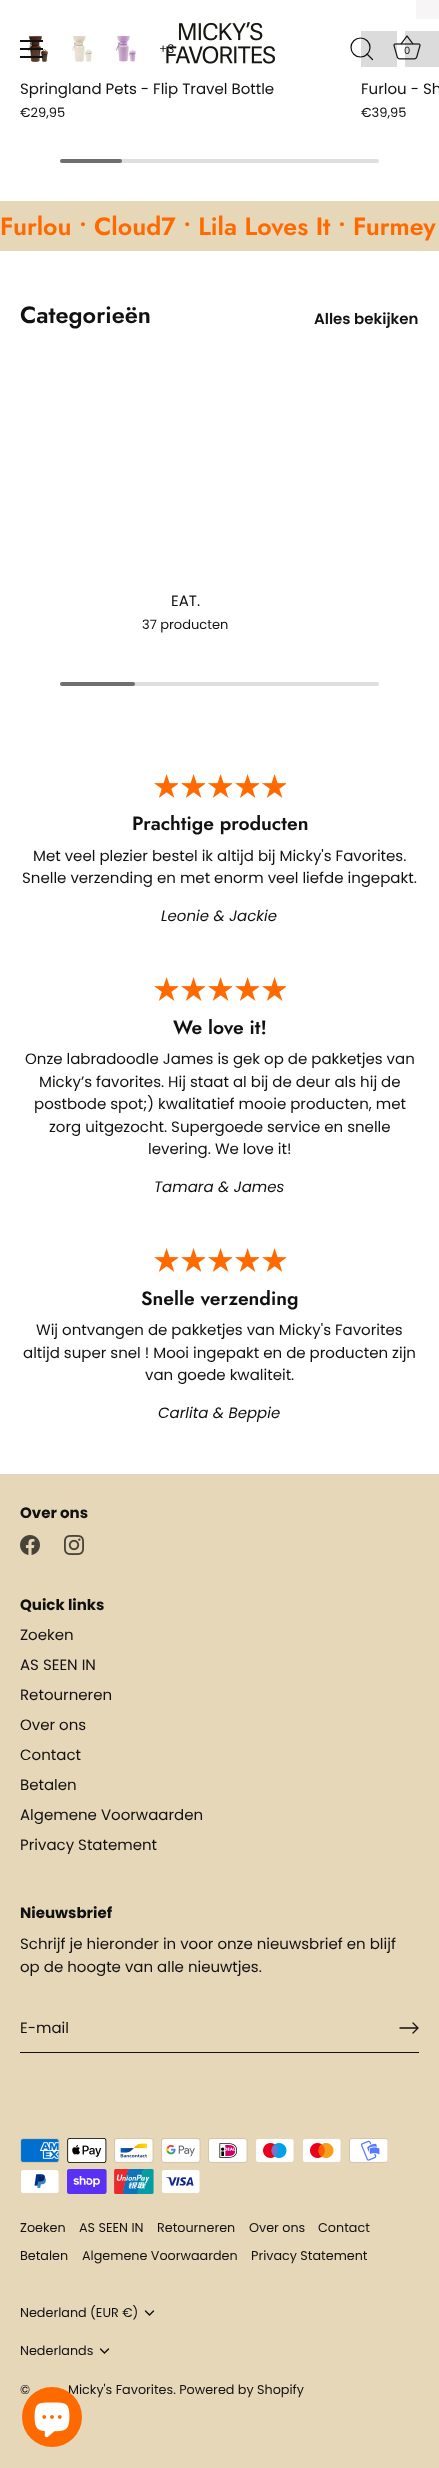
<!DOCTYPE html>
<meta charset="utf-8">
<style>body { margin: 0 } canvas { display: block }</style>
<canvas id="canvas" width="439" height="2468"></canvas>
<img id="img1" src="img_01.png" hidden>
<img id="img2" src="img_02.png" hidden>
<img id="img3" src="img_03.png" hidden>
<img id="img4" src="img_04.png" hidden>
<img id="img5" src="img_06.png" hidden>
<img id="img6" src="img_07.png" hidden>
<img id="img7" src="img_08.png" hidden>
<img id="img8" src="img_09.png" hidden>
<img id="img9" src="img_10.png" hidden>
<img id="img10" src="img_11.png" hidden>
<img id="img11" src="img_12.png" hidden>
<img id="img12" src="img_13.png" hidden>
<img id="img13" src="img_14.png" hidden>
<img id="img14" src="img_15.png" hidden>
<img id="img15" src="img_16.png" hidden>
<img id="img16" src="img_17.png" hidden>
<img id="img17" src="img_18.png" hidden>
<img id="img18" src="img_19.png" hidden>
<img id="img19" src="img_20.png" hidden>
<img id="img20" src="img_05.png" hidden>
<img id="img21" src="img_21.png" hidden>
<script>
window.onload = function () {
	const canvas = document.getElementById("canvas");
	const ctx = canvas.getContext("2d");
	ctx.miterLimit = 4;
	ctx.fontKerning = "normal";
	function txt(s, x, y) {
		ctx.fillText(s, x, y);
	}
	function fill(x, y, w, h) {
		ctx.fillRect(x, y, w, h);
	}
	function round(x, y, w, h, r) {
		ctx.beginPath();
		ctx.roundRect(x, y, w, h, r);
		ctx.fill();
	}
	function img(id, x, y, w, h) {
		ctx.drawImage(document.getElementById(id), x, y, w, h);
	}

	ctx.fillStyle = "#FFFFFF";
	fill(0, 0, 439, 2468);
	img("img1", 20, 31, 36, 36);
	img("img2", 64, 31, 36, 36);
	img("img3", 108, 31, 36, 36);
	ctx.fillStyle = "#F7F5F6";
	fill(416, 0, 23, 19);
	ctx.fillStyle = "#DBDBDB";
	fill(361, 31, 36, 36);
	fill(405, 31, 34, 36);
	ctx.fillStyle = "#DFDFDF";
	round(60, 159, 319, 4, 2);
	ctx.fillStyle = "rgba(0, 0, 0, 0.5)";
	round(60, 159, 62, 4, 2);
	ctx.fillStyle = "#E7D7B9";
	fill(0, 201, 439, 50);
	ctx.fillStyle = "#DFDFDF";
	round(60, 682, 319, 4, 2);
	ctx.fillStyle = "rgba(0, 0, 0, 0.5)";
	round(60, 682, 75, 4, 2);
	img("img4", 154, 774, 24, 24);
	img("img4", 181, 774, 24, 24);
	img("img4", 208, 774, 24, 24);
	img("img4", 235, 774, 24, 24);
	img("img4", 262, 774, 24, 24);
	img("img4", 154, 977, 24, 24);
	img("img4", 181, 977, 24, 24);
	img("img4", 208, 977, 24, 24);
	img("img4", 235, 977, 24, 24);
	img("img4", 262, 977, 24, 24);
	img("img4", 154, 1248, 24, 24);
	img("img4", 181, 1248, 24, 24);
	img("img4", 208, 1248, 24, 24);
	img("img4", 235, 1248, 24, 24);
	img("img4", 262, 1248, 24, 24);
	ctx.fillStyle = "#111111";
	fill(20, 40, 23, 2);
	fill(20, 48, 23, 2);
	fill(20, 56, 23, 2);
	ctx.beginPath();
	ctx.arc(360.5, 47.5, 9.5, 0, Math.PI * 2);
	ctx.strokeStyle = "#111111";
	ctx.lineWidth = 1.2;
	ctx.stroke();
	ctx.beginPath();
	ctx.moveTo(372.5, 59.5);
	ctx.lineTo(367, 54);
	ctx.lineCap = "round";
	ctx.lineJoin = "round";
	ctx.stroke();
	img("img5", 393, 35, 28, 25);
	ctx.fillStyle = "#E7D7B9";
	fill(0, 1474, 439, 994);
	img("img6", 20, 1535, 20, 20);
	img("img7", 64, 1535, 20, 20);
	ctx.fillStyle = "#111111";
	fill(20, 2052, 399, 1);
	ctx.beginPath();
	ctx.moveTo(413, 2033);
	ctx.lineTo(418, 2028);
	ctx.lineTo(413, 2023);
	ctx.lineWidth = 1.3;
	ctx.lineJoin = "miter";
	ctx.stroke();
	ctx.beginPath();
	ctx.moveTo(417, 2028);
	ctx.lineTo(400, 2028);
	ctx.lineJoin = "round";
	ctx.stroke();
	img("img8", 20, 2138, 40, 25);
	img("img9", 67, 2138, 40, 25);
	img("img10", 114, 2138, 40, 25);
	img("img11", 161, 2138, 40, 25);
	img("img12", 208, 2138, 40, 25);
	img("img13", 256, 2139, 38, 23);
	img("img14", 303, 2139, 38, 23);
	img("img15", 349, 2138, 39, 25);
	img("img16", 21, 2170, 38, 23);
	img("img17", 67, 2169, 40, 25);
	img("img18", 114, 2169, 40, 25);
	img("img19", 162, 2170, 38, 23);
	ctx.beginPath();
	ctx.moveTo(145.5, 2311);
	ctx.lineTo(149.5, 2315);
	ctx.lineTo(153.5, 2311);
	ctx.lineWidth = 1.4;
	ctx.lineJoin = "miter";
	ctx.stroke();
	ctx.beginPath();
	ctx.moveTo(100.5, 2349);
	ctx.lineTo(104.5, 2353);
	ctx.lineTo(108.5, 2349);
	ctx.stroke();
	ctx.font = "12px Poppins";
	txt("+3", 159, 53);
	ctx.font = "15px Poppins";
	txt("Springland Pets - Flip Travel Bottle", 20, 94);
	ctx.font = "13px Poppins";
	txt("€29,95", 20, 117);
	ctx.font = "15px Poppins";
	txt("Furlou - Sh", 361, 94);
	ctx.font = "13px Poppins";
	txt("€39,95", 361, 117);
	ctx.font = "600 25px Jost";
	ctx.fillStyle = "#FF6A00";
	txt("Furlou • Cloud7 • Lila Loves It • Furmey", 0, 235);
	ctx.font = "600 23.5px Jost";
	ctx.fillStyle = "#111111";
	txt("Categorieën", 20, 323);
	ctx.font = "600 15px Poppins";
	txt("Alles bekijken", 314, 324);
	ctx.font = "15px Poppins";
	txt("EAT.", 171, 606);
	ctx.font = "13px Poppins";
	txt("37 producten", 142, 629);
	ctx.font = "600 19.25px Jost";
	txt("Prachtige producten", 132, 830);
	ctx.font = "15px Poppins";
	txt("Met veel plezier bestel ik altijd bij Micky's Favorites.", 33, 861);
	txt("Snelle verzending en met enorm veel liefde ingepakt.", 22, 883);
	ctx.font = "italic 15px Poppins";
	txt("Leonie & Jackie", 161, 921);
	ctx.font = "600 19.25px Jost";
	txt("We love it!", 173, 1034);
	ctx.font = "15px Poppins";
	txt("Onze labradoodle James is gek op de pakketjes van", 25, 1064);
	txt("Micky’s favorites. Hij staat al bij de deur als hij de", 39, 1087);
	txt("postbode spot;) kwalitatief mooie producten, met", 34, 1109);
	txt("zorg uitgezocht. Supergoede service en snelle", 49, 1132);
	txt("levering. We love it!", 148, 1154);
	ctx.font = "italic 15px Poppins";
	txt("Tamara & James", 154, 1192);
	ctx.font = "600 19.25px Jost";
	txt("Snelle verzending", 141, 1305);
	ctx.font = "15px Poppins";
	txt("Wij ontvangen de pakketjes van Micky's Favorites", 36, 1335);
	txt("altijd super snel ! Mooi ingepakt en de producten zijn", 23, 1358);
	txt("van goede kwaliteit.", 145, 1380);
	ctx.font = "italic 15px Poppins";
	txt("Carlita & Beppie", 158, 1418);
	img("img20", 166, 22, 109, 42);
	ctx.font = "10px Poppins";
	txt("0", 404, 54);
	ctx.font = "bold 15px Poppins";
	txt("Over ons", 20, 1518);
	txt("Quick links", 20, 1610);
	ctx.font = "15px Poppins";
	txt("Zoeken", 20, 1640);
	txt("AS SEEN IN", 20, 1670);
	txt("Retourneren", 20, 1700);
	txt("Over ons", 20, 1730);
	txt("Contact", 20, 1760);
	txt("Betalen", 20, 1790);
	txt("Algemene Voorwaarden", 20, 1820);
	txt("Privacy Statement", 20, 1850);
	ctx.font = "bold 15px Poppins";
	txt("Nieuwsbrief", 20, 1918);
	ctx.font = "15px Poppins";
	txt("Schrijf je hieronder in voor onze nieuwsbrief en blijf", 20, 1949);
	txt("op de hoogte van alle nieuwtjes.", 20, 1972);
	txt("E-mail", 20, 2033);
	ctx.font = "12.75px Poppins";
	txt("Zoeken", 20, 2232);
	txt("AS SEEN IN", 79, 2232);
	txt("Retourneren", 157, 2232);
	txt("Over ons", 249, 2232);
	txt("Contact", 318, 2232);
	txt("Betalen", 20, 2260);
	txt("Algemene Voorwaarden", 82, 2260);
	txt("Privacy Statement", 251, 2260);
	txt("Nederland (EUR €)", 20, 2317);
	txt("Nederlands", 20, 2355);
	txt("©", 20, 2394);
	txt("Micky's Favorites. Powered by Shopify", 68, 2394);
	ctx.fillStyle = "#FF6A00";
	ctx.beginPath();
	ctx.arc(52, 2417, 30, 0, Math.PI * 2);
	ctx.fill();
	img("img21", 34, 2402, 36, 36);
};
</script>
